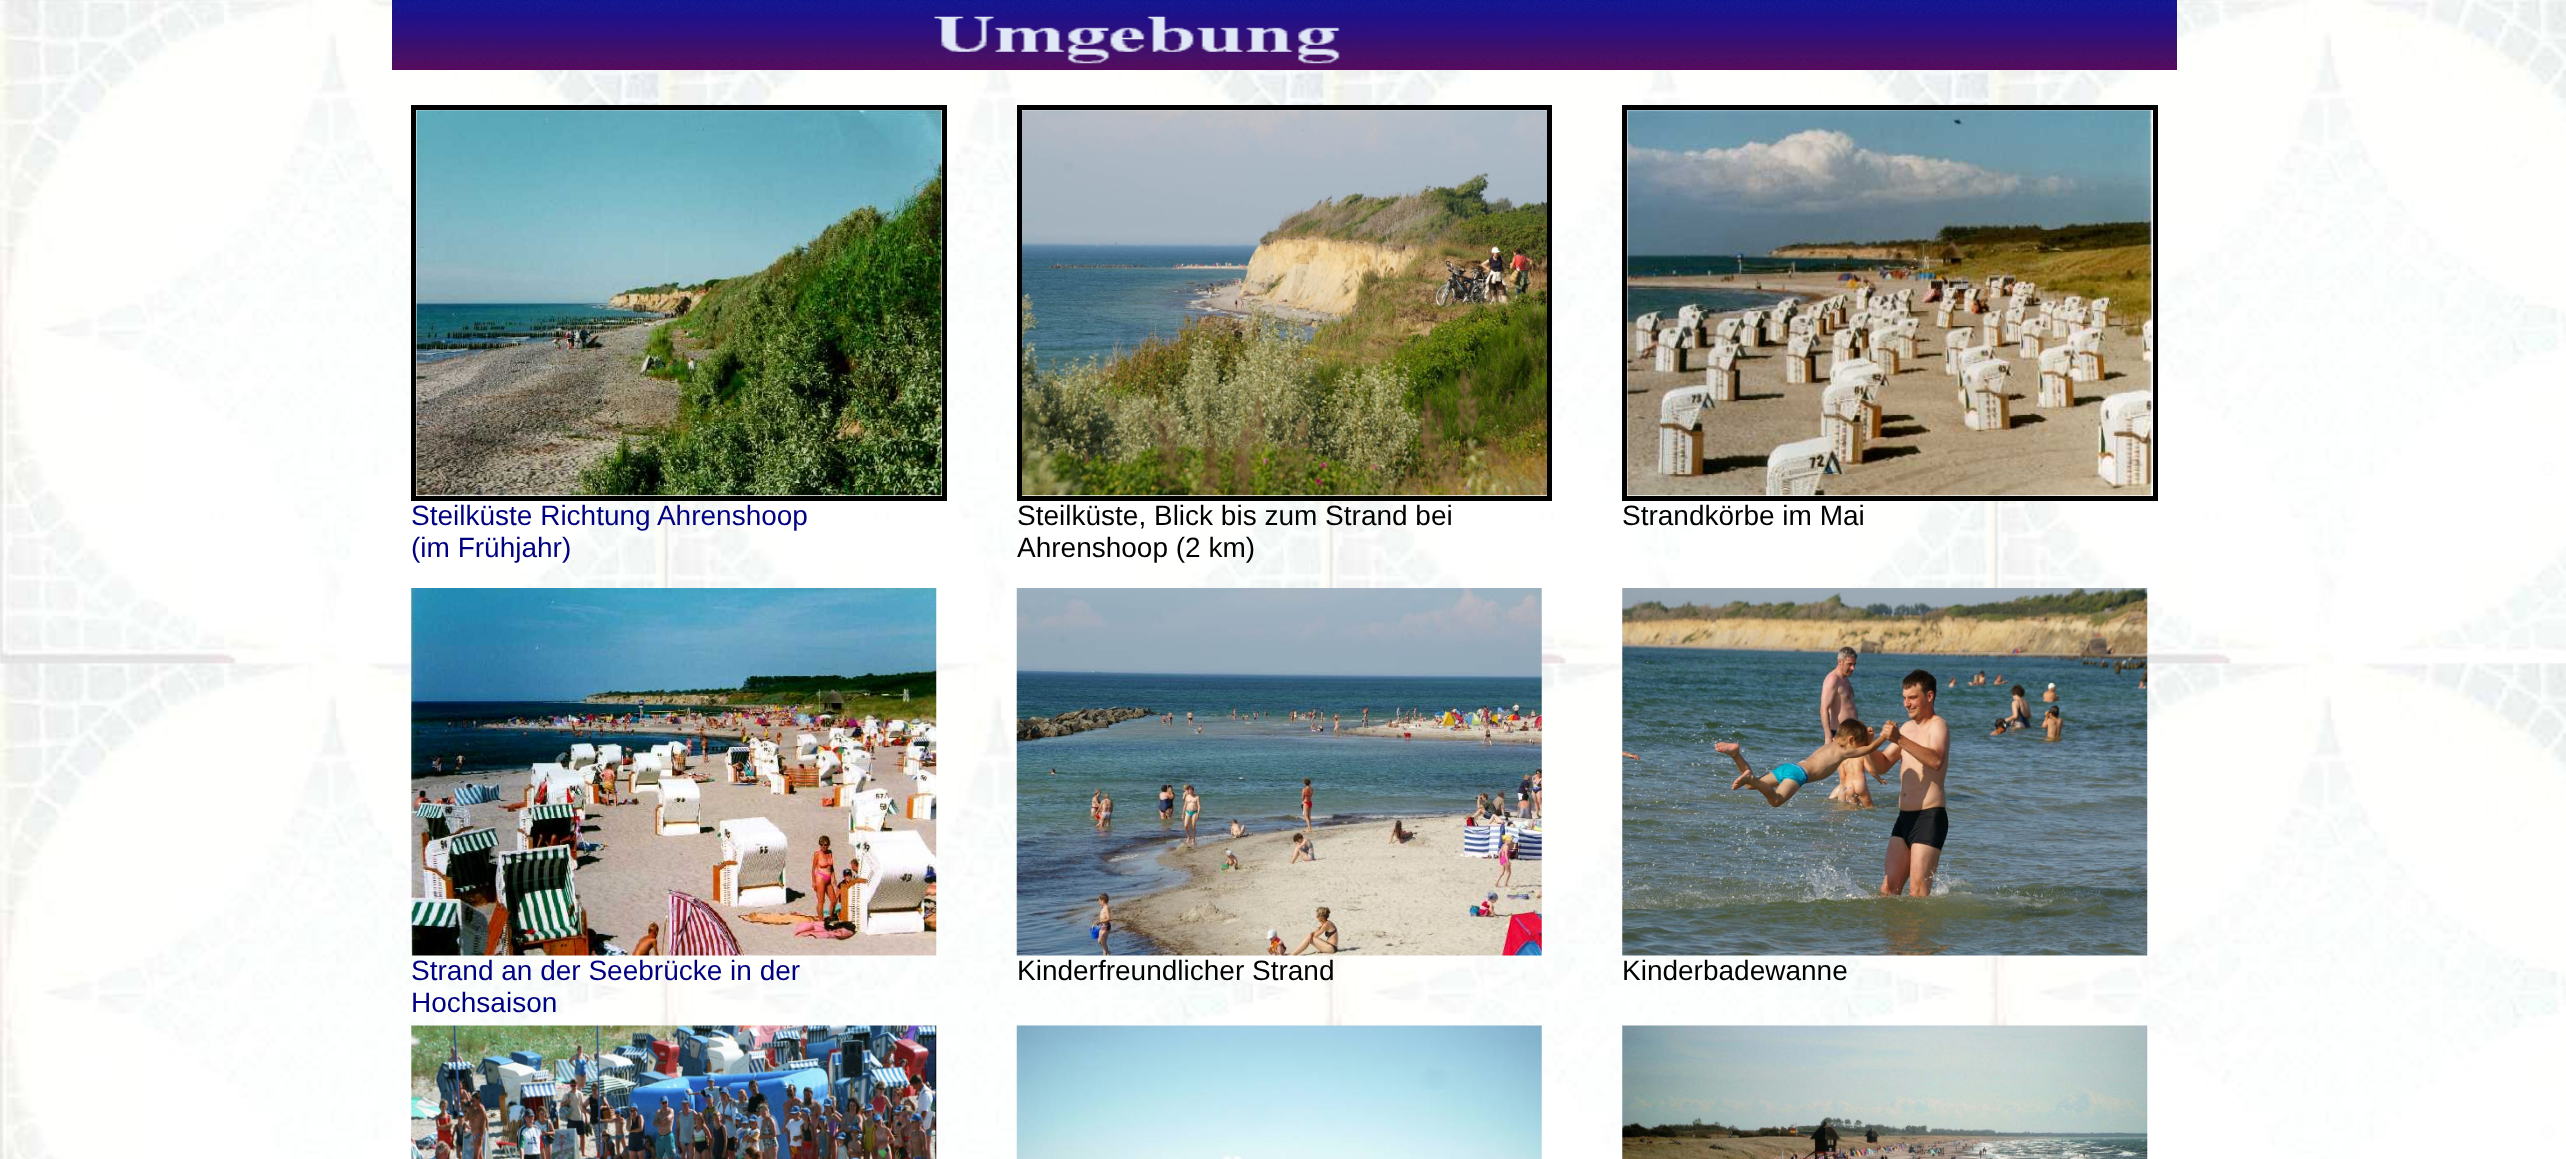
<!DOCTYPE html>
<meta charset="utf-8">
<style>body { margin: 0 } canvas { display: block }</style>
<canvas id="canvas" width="2566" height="1159"></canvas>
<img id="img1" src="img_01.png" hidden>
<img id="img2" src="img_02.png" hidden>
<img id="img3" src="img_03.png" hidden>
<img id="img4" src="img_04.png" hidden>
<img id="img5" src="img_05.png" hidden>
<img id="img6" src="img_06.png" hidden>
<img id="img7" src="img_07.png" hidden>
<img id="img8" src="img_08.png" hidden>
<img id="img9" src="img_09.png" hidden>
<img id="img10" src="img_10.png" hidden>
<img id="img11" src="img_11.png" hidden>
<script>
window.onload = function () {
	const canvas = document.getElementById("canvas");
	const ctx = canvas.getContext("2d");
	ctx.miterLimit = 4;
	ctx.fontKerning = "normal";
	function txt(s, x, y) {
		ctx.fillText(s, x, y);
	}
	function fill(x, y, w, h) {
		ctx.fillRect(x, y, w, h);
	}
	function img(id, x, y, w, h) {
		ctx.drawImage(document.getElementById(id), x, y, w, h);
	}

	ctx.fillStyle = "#FFFFFF";
	fill(0, 0, 2566, 1159);
	img("img1", 0, 0, 2566, 1159);
	img("img2", 392, 0, 1785, 70);
	ctx.strokeStyle = "#000000";
	ctx.lineWidth = 5;
	ctx.strokeRect(413.5, 107.5, 531, 391);
	img("img3", 416, 110, 526, 386);
	ctx.strokeRect(1019.5, 107.5, 530, 391);
	img("img4", 1022, 110, 525, 386);
	ctx.strokeRect(1624.5, 107.5, 531, 391);
	img("img5", 1627, 110, 526, 386);
	img("img6", 411, 588, 526, 368);
	img("img7", 1016, 588, 526, 368);
	img("img8", 1622, 588, 526, 368);
	img("img9", 411, 1025, 526, 134);
	img("img10", 1016, 1025, 526, 134);
	img("img11", 1622, 1025, 526, 134);
	ctx.font = "28px Liberation Sans";
	ctx.fillStyle = "#000080";
	txt("Steilküste Richtung Ahrenshoop", 411, 525);
	txt("(im Frühjahr)", 411, 557);
	ctx.fillStyle = "#000000";
	txt("Steilküste, Blick bis zum Strand bei", 1017, 525);
	txt("Ahrenshoop (2 km)", 1017, 557);
	txt("Strandkörbe im Mai", 1622, 525);
	ctx.fillStyle = "#000080";
	txt("Strand an der Seebrücke in der", 411, 980);
	txt("Hochsaison", 411, 1012);
	ctx.fillStyle = "#000000";
	txt("Kinderfreundlicher Strand", 1017, 980);
	txt("Kinderbadewanne", 1622, 980);
};
</script>
